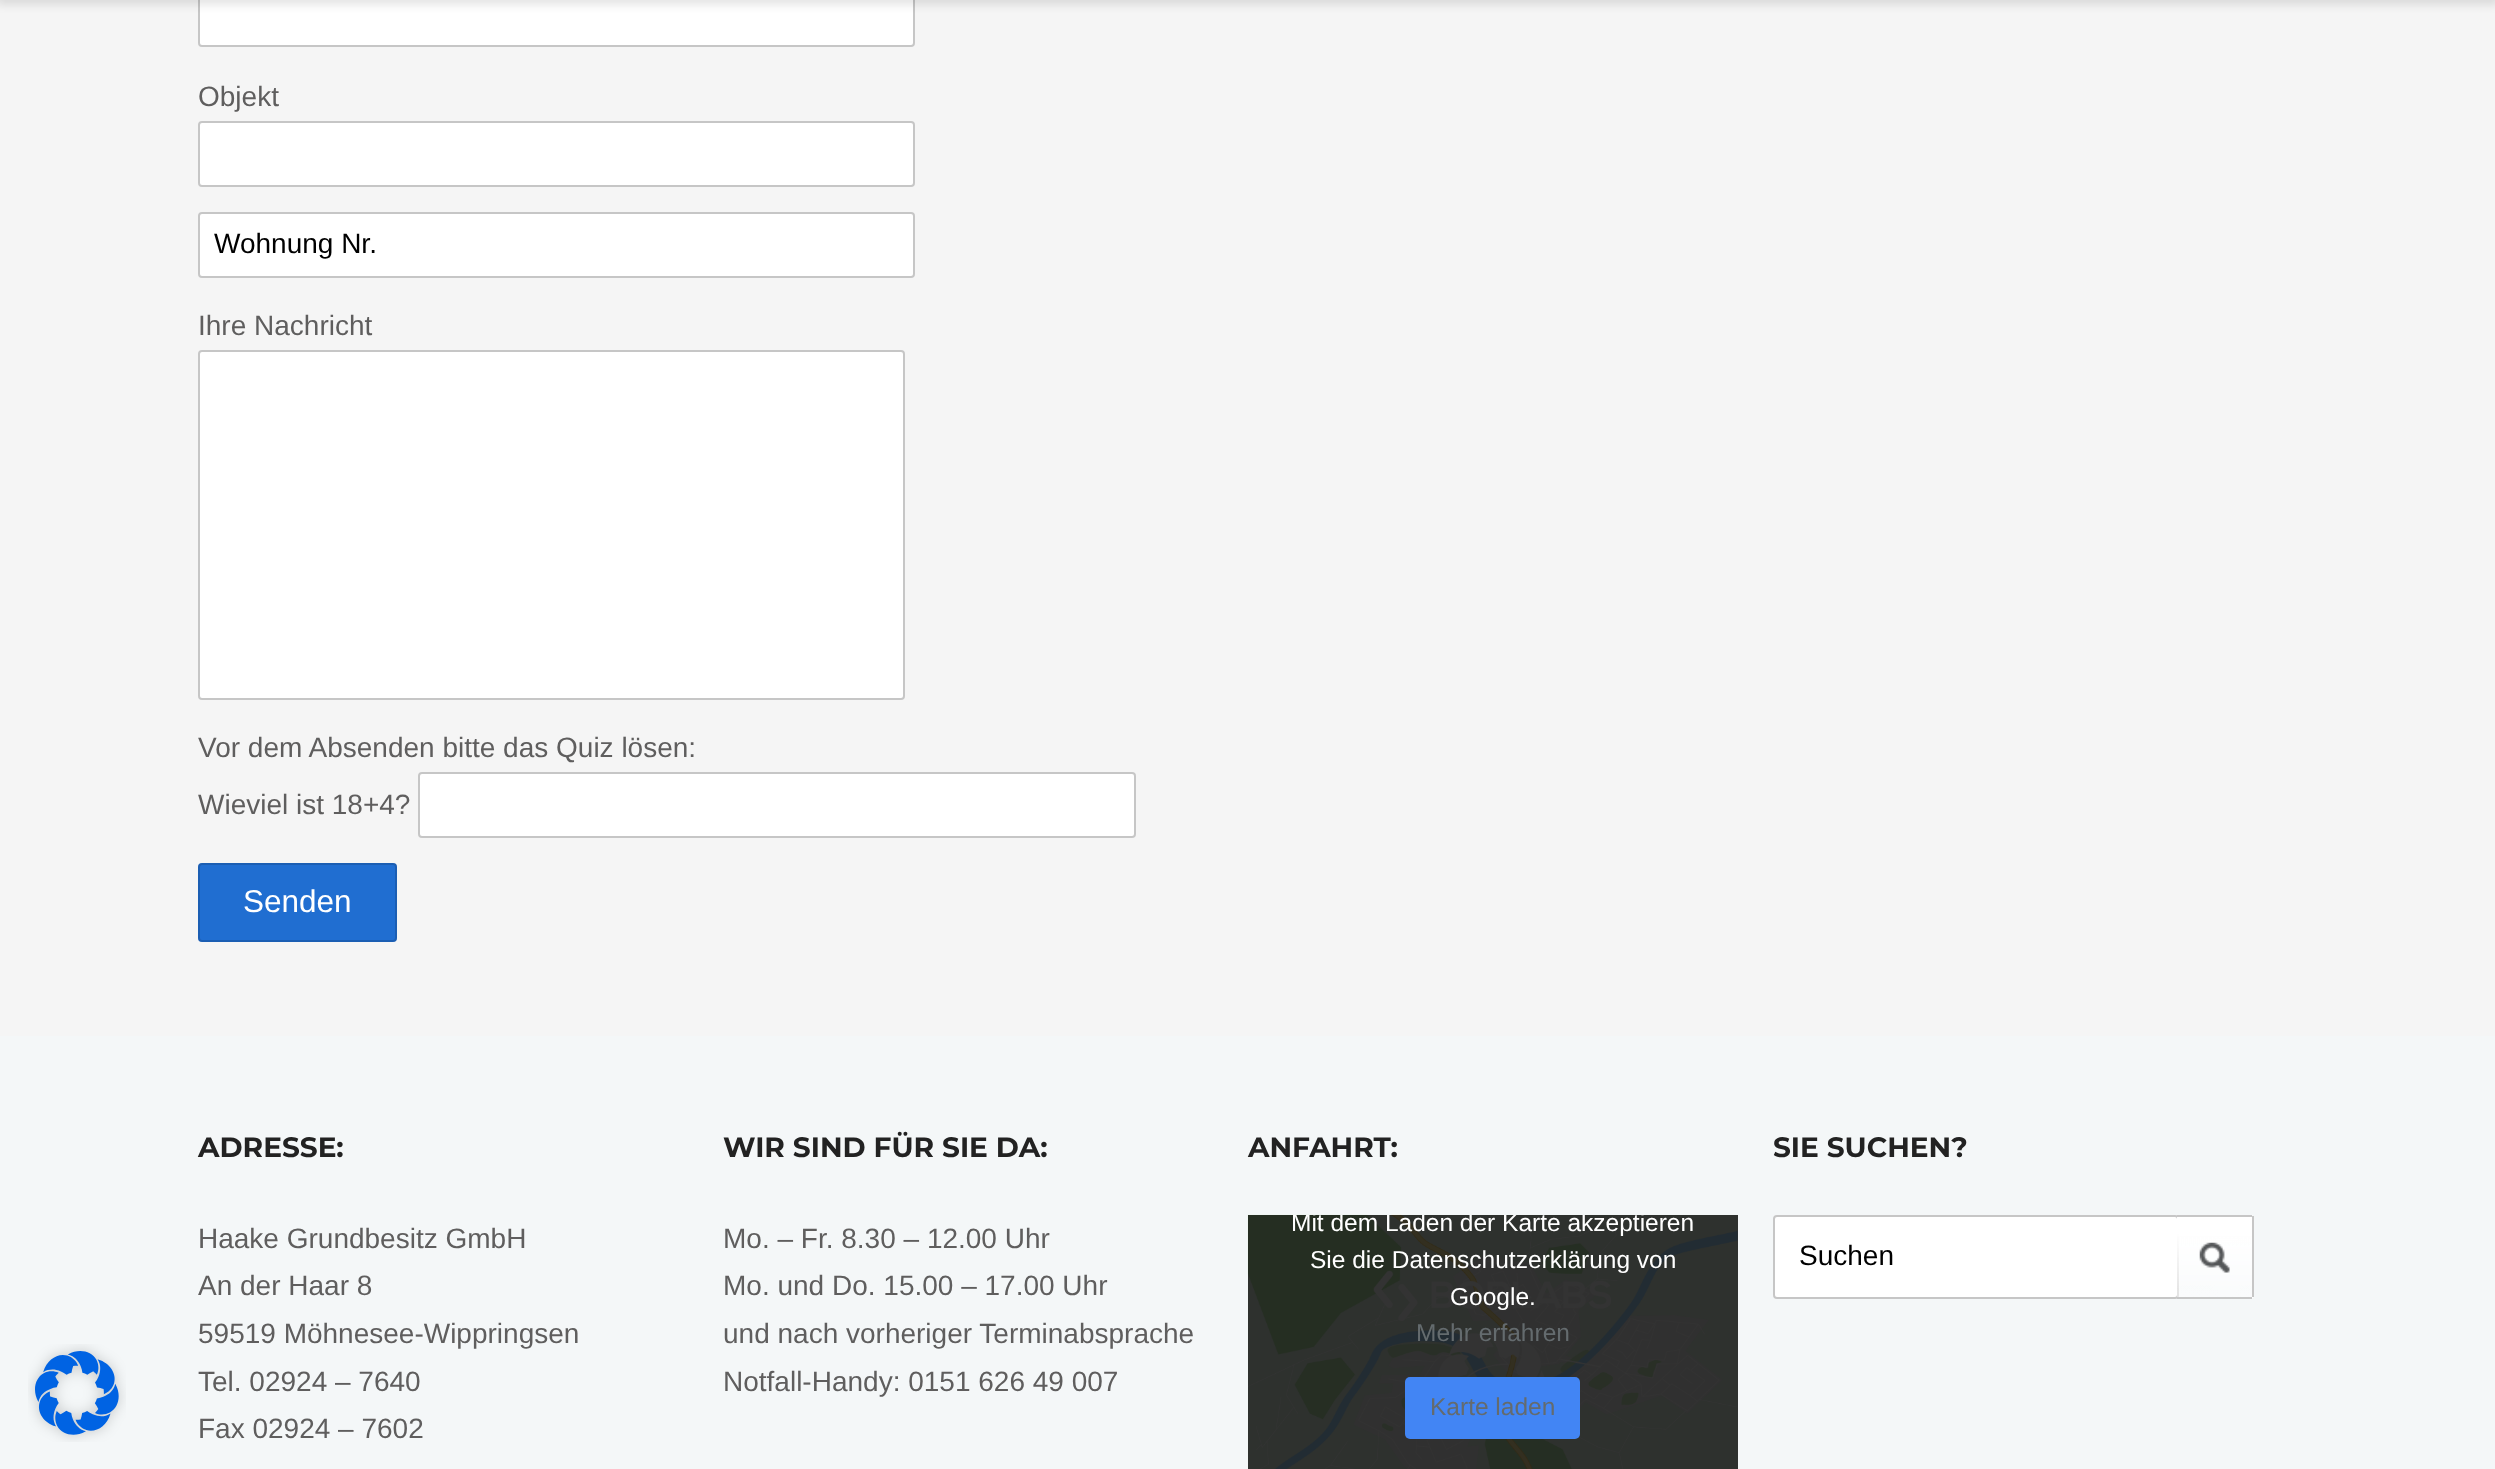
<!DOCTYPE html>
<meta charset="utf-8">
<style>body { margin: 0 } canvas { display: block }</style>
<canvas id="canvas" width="2495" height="1469"></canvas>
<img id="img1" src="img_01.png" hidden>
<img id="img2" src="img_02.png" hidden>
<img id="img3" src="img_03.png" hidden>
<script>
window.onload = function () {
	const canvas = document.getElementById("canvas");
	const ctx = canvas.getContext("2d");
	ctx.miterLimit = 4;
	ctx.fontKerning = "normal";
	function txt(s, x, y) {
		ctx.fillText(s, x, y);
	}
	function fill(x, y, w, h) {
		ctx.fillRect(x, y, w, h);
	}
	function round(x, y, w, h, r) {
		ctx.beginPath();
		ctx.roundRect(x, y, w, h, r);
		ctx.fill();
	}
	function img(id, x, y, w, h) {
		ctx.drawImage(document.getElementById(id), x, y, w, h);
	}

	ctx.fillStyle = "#F5F5F5";
	fill(0, 0, 2495, 1469);
	ctx.fillStyle = "#FFFFFF";
	ctx.beginPath();
	ctx.roundRect(199, -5, 715, 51, 3);
	ctx.fill();
	ctx.strokeStyle = "#C6C6C6";
	ctx.lineWidth = 2;
	ctx.stroke();
	ctx.fillStyle = "rgba(0, 0, 0, 0.1)";
	ctx.filter = "blur(4.5px)";
	ctx.beginPath();
	ctx.rect(-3, -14, 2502, 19);
	ctx.fill();
	ctx.filter = "none";
	ctx.fillStyle = "#FFFFFF";
	ctx.beginPath();
	ctx.roundRect(199, 122, 715, 64, 3);
	ctx.fill();
	ctx.stroke();
	ctx.beginPath();
	ctx.roundRect(199, 213, 715, 64, 3);
	ctx.fill();
	ctx.stroke();
	ctx.beginPath();
	ctx.roundRect(199, 351, 705, 348, 3);
	ctx.fill();
	ctx.stroke();
	ctx.beginPath();
	ctx.roundRect(419, 773, 716, 64, 3);
	ctx.fill();
	ctx.stroke();
	ctx.fillStyle = "#206ED1";
	round(198, 863, 199, 79, 4);
	ctx.beginPath();
	ctx.roundRect(199, 864, 197, 77, 3);
	ctx.strokeStyle = "rgba(0, 0, 0, 0.14)";
	ctx.stroke();
	ctx.fillStyle = "#F4F7F8";
	fill(0, 1036, 2495, 433);
	img("img1", 28, 1344, 98, 98);
	ctx.fillStyle = "#313132";
	fill(1737, 1215, 1, 254);
	img("img2", 1247, 1214, 491, 255);
	ctx.fillStyle = "#4285F4";
	round(1405, 1377, 175, 62, 5);
	ctx.fillStyle = "#FFFFFF";
	ctx.beginPath();
	ctx.roundRect(1774, 1216, 404, 82, 3);
	ctx.fill();
	ctx.strokeStyle = "#C6C6C6";
	ctx.stroke();
	img("img3", 2177, 1215, 77, 84);
	ctx.fillStyle = "#C6C6C6";
	fill(2177, 1215, 75, 2);
	fill(2252, 1216, 2, 81);
	fill(2177, 1297, 75, 2);
	ctx.font = "28px Liberation Sans";
	ctx.fillStyle = "#5F5E5E";
	txt("Objekt", 198, 106);
	ctx.fillStyle = "#000000";
	txt("Wohnung Nr.", 214, 253);
	ctx.fillStyle = "#5F5E5E";
	txt("Ihre Nachricht", 198, 335);
	txt("Vor dem Absenden bitte das Quiz lösen:", 198, 757);
	txt("Wieviel ist 18+4?", 198, 814);
	ctx.font = "31.5px Liberation Sans";
	ctx.fillStyle = "#FFFFFF";
	txt("Senden", 243, 912);
	ctx.font = "100 28px Montserrat";
	ctx.fillStyle = "#222222";
	txt("ADRESSE:", 198, 1157);
	ctx.font = "28px Liberation Sans";
	ctx.fillStyle = "#5F5E5E";
	txt("Haake Grundbesitz GmbH", 198, 1248);
	txt("An der Haar 8", 198, 1295);
	txt("59519 Möhnesee-Wippringsen", 198, 1343);
	txt("Tel. 02924 – 7640", 198, 1391);
	txt("Fax 02924 – 7602", 198, 1438);
	ctx.font = "100 28px Montserrat";
	ctx.fillStyle = "#222222";
	txt("WIR SIND FÜR SIE DA:", 723, 1157);
	ctx.font = "28px Liberation Sans";
	ctx.fillStyle = "#5F5E5E";
	txt("Mo. – Fr. 8.30 – 12.00 Uhr", 723, 1248);
	txt("Mo. und Do. 15.00 – 17.00 Uhr", 723, 1295);
	txt("und nach vorheriger Terminabsprache", 723, 1343);
	txt("Notfall-Handy: 0151 626 49 007", 723, 1391);
	ctx.font = "100 28px Montserrat";
	ctx.fillStyle = "#222222";
	txt("ANFAHRT:", 1248, 1157);
	ctx.save();
	ctx.beginPath();
	ctx.rect(1248, 1215, 490, 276);
	ctx.clip();
	ctx.font = "24.5px Liberation Sans";
	ctx.fillStyle = "#FFFFFF";
	txt("Mit dem Laden der Karte akzeptieren", 1291, 1231);
	ctx.restore();
	ctx.font = "24.5px Liberation Sans";
	ctx.fillStyle = "#FFFFFF";
	txt("Sie die Datenschutzerklärung von", 1310, 1268);
	txt("Google.", 1450, 1305);
	ctx.fillStyle = "#646B6E";
	txt("Mehr erfahren", 1416, 1341);
	txt("Karte laden", 1430, 1415);
	ctx.font = "100 28px Montserrat";
	ctx.fillStyle = "#222222";
	txt("SIE SUCHEN?", 1773, 1157);
	ctx.font = "28px Liberation Sans";
	ctx.fillStyle = "#000000";
	txt("Suchen", 1799, 1265);
};
</script>
